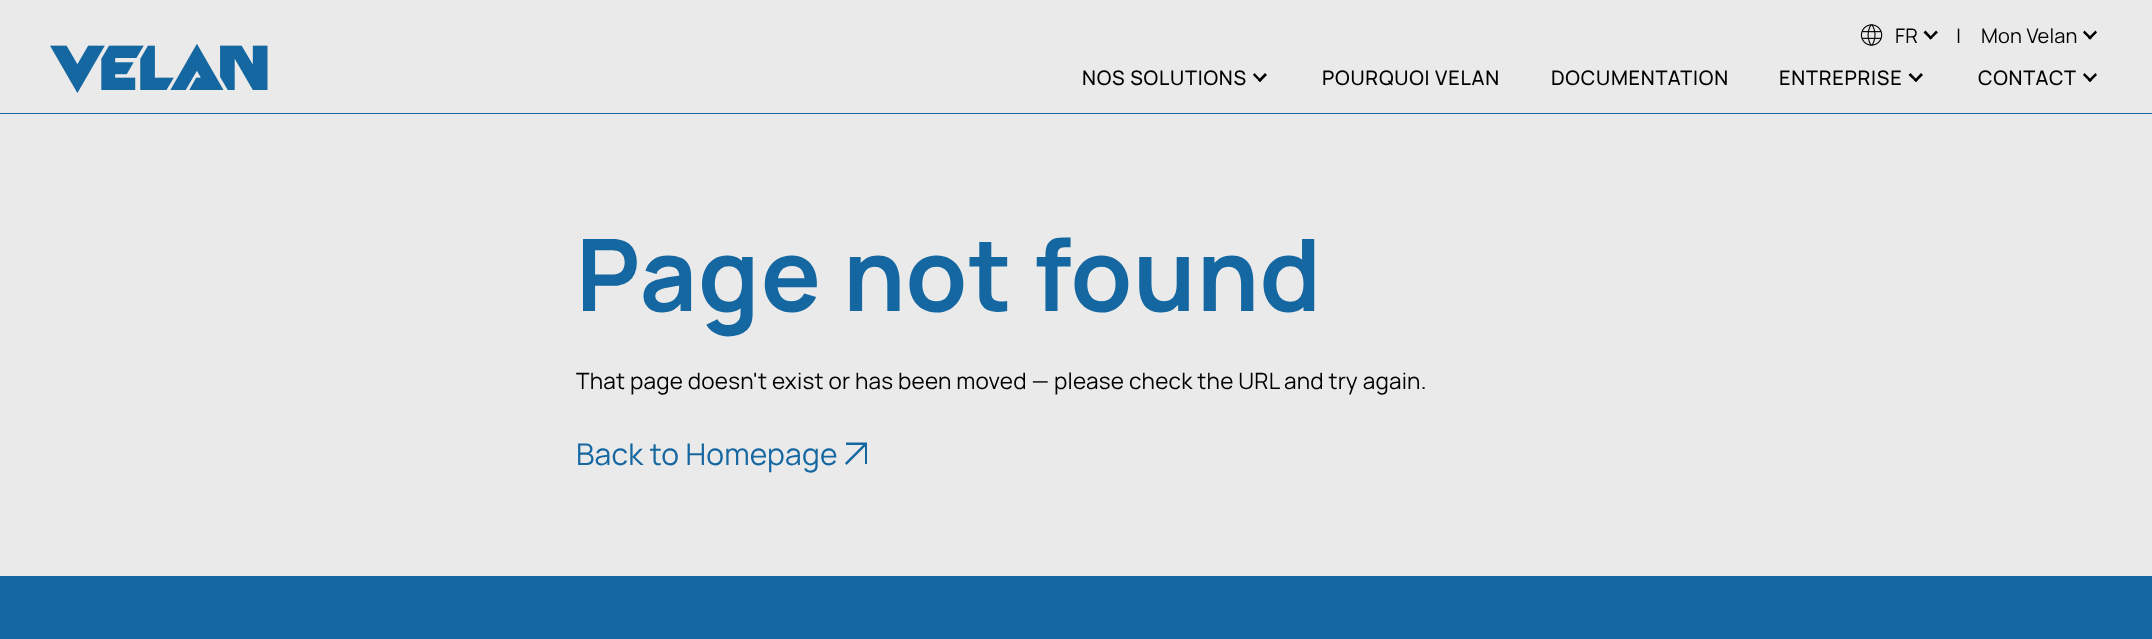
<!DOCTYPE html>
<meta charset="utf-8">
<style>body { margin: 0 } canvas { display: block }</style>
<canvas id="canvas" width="2152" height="639"></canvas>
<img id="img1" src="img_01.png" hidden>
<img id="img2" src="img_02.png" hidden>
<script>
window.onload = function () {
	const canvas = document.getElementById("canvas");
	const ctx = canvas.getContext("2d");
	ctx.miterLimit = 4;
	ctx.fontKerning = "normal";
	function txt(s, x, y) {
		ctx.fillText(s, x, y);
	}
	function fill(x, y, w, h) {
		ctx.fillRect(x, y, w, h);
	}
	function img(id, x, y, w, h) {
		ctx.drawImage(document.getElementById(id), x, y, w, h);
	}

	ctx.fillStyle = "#EAEAEA";
	fill(0, 0, 2152, 639);
	ctx.fillStyle = "#1567A1";
	fill(0, 113, 2152, 1);
	img("img1", 50, 44, 218, 49);
	img("img2", 1860, 24, 23, 22);
	ctx.fillStyle = "#000000";
	ctx.beginPath();
	ctx.moveTo(1936, 30.5);
	ctx.lineTo(1938, 32.5);
	ctx.lineTo(1930.5, 39.5);
	ctx.lineTo(1929, 38);
	ctx.closePath();
	ctx.fill();
	ctx.beginPath();
	ctx.moveTo(1925.5, 30.5);
	ctx.lineTo(1932.5, 38);
	ctx.lineTo(1930.5, 39.5);
	ctx.lineTo(1923.5, 32.5);
	ctx.closePath();
	ctx.fill();
	ctx.beginPath();
	ctx.moveTo(2095.5, 30.5);
	ctx.lineTo(2097, 32.5);
	ctx.lineTo(2090, 39.5);
	ctx.lineTo(2088, 38);
	ctx.closePath();
	ctx.fill();
	ctx.beginPath();
	ctx.moveTo(2084.5, 30.5);
	ctx.lineTo(2092, 38);
	ctx.lineTo(2090, 39.5);
	ctx.lineTo(2083, 32.5);
	ctx.closePath();
	ctx.fill();
	ctx.beginPath();
	ctx.moveTo(1265, 73);
	ctx.lineTo(1267, 75);
	ctx.lineTo(1260, 82);
	ctx.lineTo(1258, 80.5);
	ctx.closePath();
	ctx.fill();
	ctx.beginPath();
	ctx.moveTo(1254.5, 73);
	ctx.lineTo(1261.5, 80.5);
	ctx.lineTo(1260, 82);
	ctx.lineTo(1253, 75);
	ctx.closePath();
	ctx.fill();
	ctx.beginPath();
	ctx.moveTo(1921, 73);
	ctx.lineTo(1923, 75);
	ctx.lineTo(1916, 82);
	ctx.lineTo(1914, 80.5);
	ctx.closePath();
	ctx.fill();
	ctx.beginPath();
	ctx.moveTo(1910.5, 73);
	ctx.lineTo(1917.5, 80.5);
	ctx.lineTo(1916, 82);
	ctx.lineTo(1908.5, 75);
	ctx.closePath();
	ctx.fill();
	ctx.beginPath();
	ctx.moveTo(2095.5, 73);
	ctx.lineTo(2097, 75);
	ctx.lineTo(2090, 82);
	ctx.lineTo(2088, 80.5);
	ctx.closePath();
	ctx.fill();
	ctx.beginPath();
	ctx.moveTo(2084.5, 73);
	ctx.lineTo(2092, 80.5);
	ctx.lineTo(2090, 82);
	ctx.lineTo(2083, 75);
	ctx.closePath();
	ctx.fill();
	ctx.fillStyle = "#1567A1";
	ctx.beginPath();
	ctx.moveTo(846.5, 465);
	ctx.lineTo(865, 446.5);
	ctx.lineTo(865, 464);
	ctx.lineTo(867, 464);
	ctx.lineTo(867, 442.5);
	ctx.lineTo(846, 442.5);
	ctx.lineTo(846, 445);
	ctx.lineTo(863, 445);
	ctx.lineTo(845, 463);
	ctx.closePath();
	ctx.fill();
	fill(0, 576, 2152, 63);
	ctx.letterSpacing = "0.22px";
	ctx.font = "20px Manrope";
	ctx.fillStyle = "#000000";
	txt("FR", 1895, 43);
	txt("|", 1956, 43);
	txt("Mon Velan", 1981, 43);
	ctx.letterSpacing = "0.75px";
	ctx.font = "500 20px Manrope";
	txt("NOS SOLUTIONS", 1082, 85);
	txt("POURQUOI VELAN", 1322, 85);
	txt("DOCUMENTATION", 1551, 85);
	txt("ENTREPRISE", 1779, 85);
	txt("CONTACT", 1978, 85);
	ctx.letterSpacing = "1px";
	ctx.font = "bold 100px Manrope";
	ctx.fillStyle = "#1567A1";
	txt("Page not found", 576, 311);
	ctx.letterSpacing = "0.22px";
	ctx.font = "22.5px Manrope";
	ctx.fillStyle = "#000000";
	txt("That page doesn't exist or has been moved — please check the URL and try again.", 576, 389);
	ctx.font = "30px Manrope";
	ctx.fillStyle = "#1567A1";
	txt("Back to Homepage", 576, 465);
};
</script>
